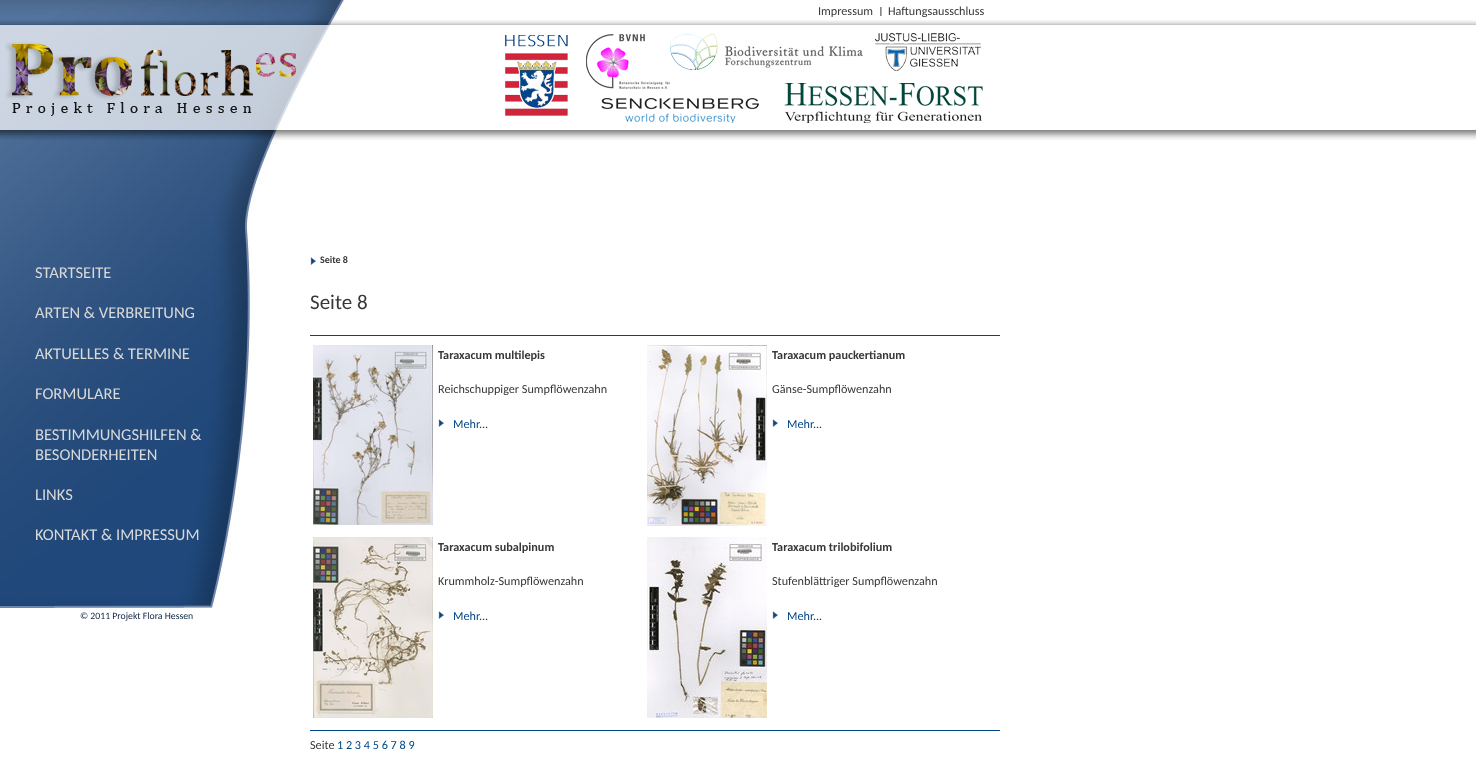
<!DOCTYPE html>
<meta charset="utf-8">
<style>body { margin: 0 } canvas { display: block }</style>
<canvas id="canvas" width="1476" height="757"></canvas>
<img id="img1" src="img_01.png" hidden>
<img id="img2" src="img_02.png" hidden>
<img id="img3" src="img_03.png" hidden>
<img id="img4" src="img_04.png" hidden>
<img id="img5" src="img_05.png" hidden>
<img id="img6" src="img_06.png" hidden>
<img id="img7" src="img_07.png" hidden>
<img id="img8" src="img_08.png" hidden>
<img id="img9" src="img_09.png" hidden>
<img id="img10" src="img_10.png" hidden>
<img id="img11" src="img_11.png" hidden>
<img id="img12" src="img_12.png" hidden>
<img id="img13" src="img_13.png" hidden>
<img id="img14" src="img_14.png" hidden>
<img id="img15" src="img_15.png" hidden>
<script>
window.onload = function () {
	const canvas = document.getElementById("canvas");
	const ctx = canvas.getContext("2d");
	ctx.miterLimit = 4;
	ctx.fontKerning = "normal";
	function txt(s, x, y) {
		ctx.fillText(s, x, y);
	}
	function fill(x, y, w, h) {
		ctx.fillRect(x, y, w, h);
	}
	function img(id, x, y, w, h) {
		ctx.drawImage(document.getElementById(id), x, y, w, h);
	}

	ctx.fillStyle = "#FFFFFF";
	fill(0, 0, 1476, 757);
	img("img1", 0, 0, 344, 608);
	img("img2", 880, 7, 2, 9);
	img("img3", 310, 257, 6, 8);
	ctx.fillStyle = "#024687";
	fill(310, 335, 690, 1);
	img("img4", 313, 345, 120, 180);
	img("img3", 438, 419, 6, 8);
	img("img5", 647, 345, 120, 181);
	img("img3", 772, 419, 6, 8);
	img("img6", 313, 537, 120, 181);
	img("img3", 438, 611, 6, 8);
	img("img7", 647, 537, 120, 181);
	img("img3", 772, 611, 6, 8);
	fill(310, 730, 690, 1);
	img("img8", 0, 20, 1476, 120);
	img("img9", 5, 42, 291, 74);
	img("img10", 505, 35, 63, 81);
	img("img11", 586, 34, 84, 55);
	img("img12", 670, 33, 193, 37);
	img("img13", 875, 33, 106, 38);
	img("img14", 601, 98, 158, 25);
	img("img15", 784, 83, 199, 40);
	ctx.font = "12.2px Carlito";
	ctx.fillStyle = "#383838";
	txt("Impressum", 818, 15);
	txt("Haftungsausschluss", 888, 15);
	ctx.font = "16.5px Carlito";
	ctx.fillStyle = "#D9D9D9";
	txt("STARTSEITE", 35, 278);
	txt("ARTEN & VERBREITUNG", 35, 318);
	txt("AKTUELLES & TERMINE", 35, 359);
	txt("FORMULARE", 35, 399);
	txt("BESTIMMUNGSHILFEN &", 35, 440);
	txt("BESONDERHEITEN", 35, 460);
	txt("LINKS", 35, 500);
	txt("KONTAKT & IMPRESSUM", 35, 540);
	ctx.font = "bold 10px Carlito";
	ctx.fillStyle = "#383838";
	txt("Seite 8", 320, 263);
	ctx.font = "21px Carlito";
	txt("Seite 8", 310, 309);
	ctx.font = "bold 12.2px Carlito";
	txt("Taraxacum multilepis", 438, 359);
	ctx.font = "12.2px Carlito";
	txt("Reichschuppiger Sumpflöwenzahn", 438, 393);
	ctx.fillStyle = "#024687";
	txt("Mehr...", 453, 428);
	ctx.font = "bold 12.2px Carlito";
	ctx.fillStyle = "#383838";
	txt("Taraxacum pauckertianum", 772, 359);
	ctx.font = "12.2px Carlito";
	txt("Gänse-Sumpflöwenzahn", 772, 393);
	ctx.fillStyle = "#024687";
	txt("Mehr...", 787, 428);
	ctx.font = "bold 12.2px Carlito";
	ctx.fillStyle = "#383838";
	txt("Taraxacum subalpinum", 438, 551);
	ctx.font = "12.2px Carlito";
	txt("Krummholz-Sumpflöwenzahn", 438, 585);
	ctx.fillStyle = "#024687";
	txt("Mehr...", 453, 620);
	ctx.font = "bold 12.2px Carlito";
	ctx.fillStyle = "#383838";
	txt("Taraxacum trilobifolium", 772, 551);
	ctx.font = "12.2px Carlito";
	txt("Stufenblättriger Sumpflöwenzahn", 772, 585);
	ctx.fillStyle = "#024687";
	txt("Mehr...", 787, 620);
	ctx.fillStyle = "#383838";
	txt("Seite", 310, 749);
	ctx.fillStyle = "#024687";
	txt("1 2 3 4 5 6 7 8 9", 337, 749);
	ctx.font = "9.75px Carlito";
	ctx.fillStyle = "#112744";
	txt("© 2011 Projekt Flora Hessen", 80, 619);
};
</script>
